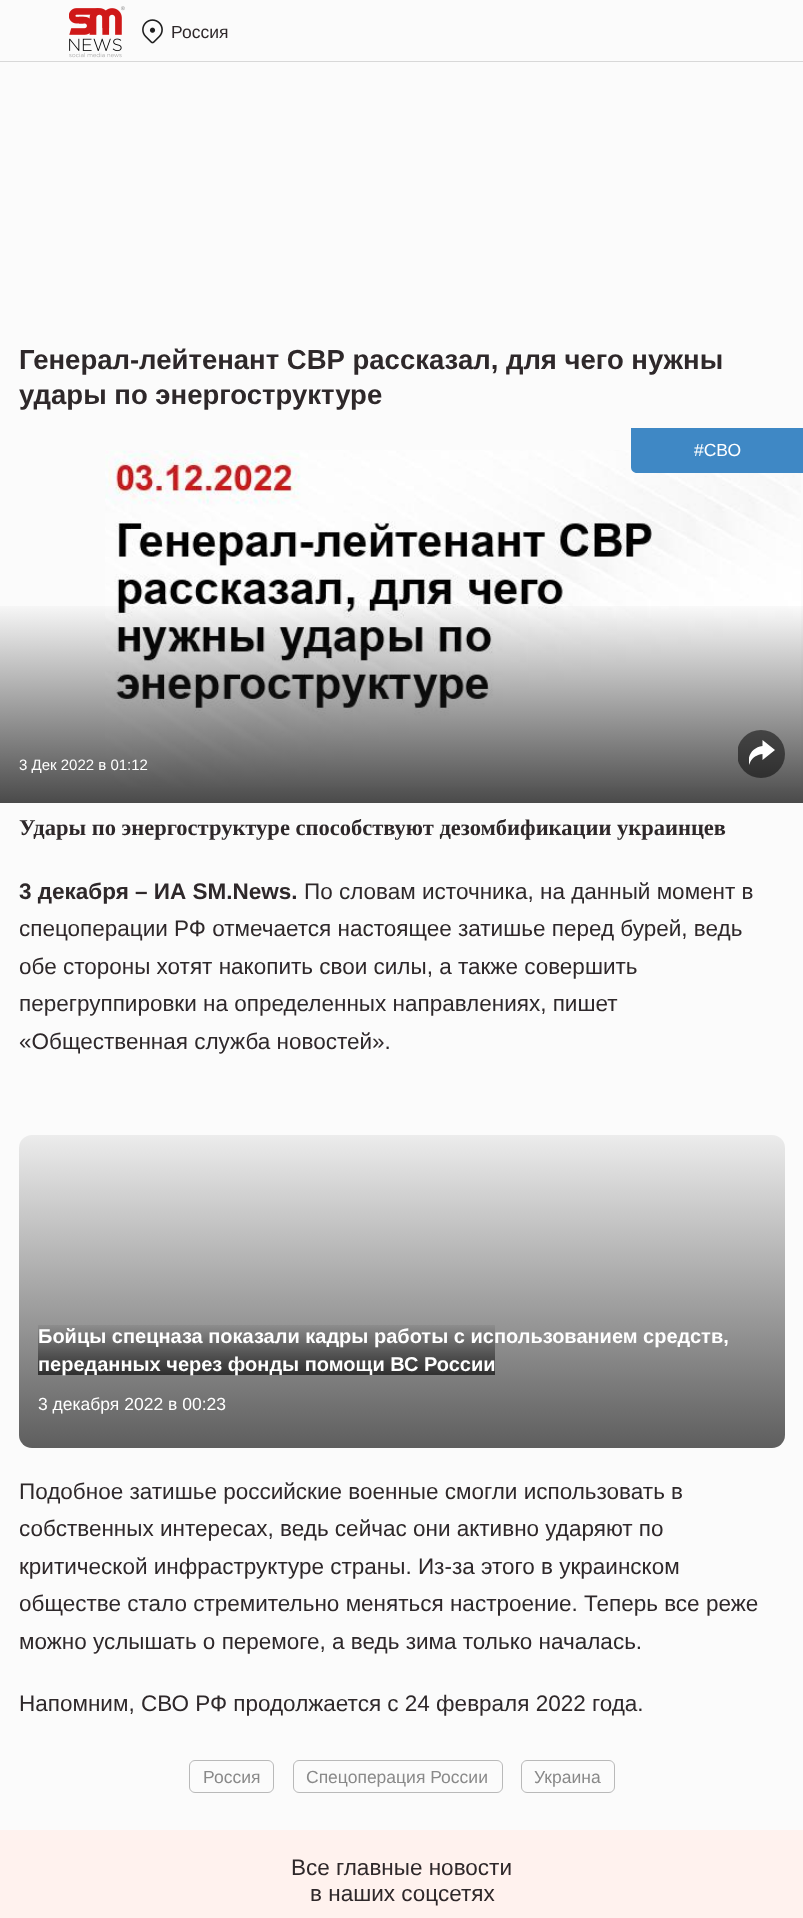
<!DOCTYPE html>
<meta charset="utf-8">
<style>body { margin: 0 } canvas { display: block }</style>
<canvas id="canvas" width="803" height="1918"></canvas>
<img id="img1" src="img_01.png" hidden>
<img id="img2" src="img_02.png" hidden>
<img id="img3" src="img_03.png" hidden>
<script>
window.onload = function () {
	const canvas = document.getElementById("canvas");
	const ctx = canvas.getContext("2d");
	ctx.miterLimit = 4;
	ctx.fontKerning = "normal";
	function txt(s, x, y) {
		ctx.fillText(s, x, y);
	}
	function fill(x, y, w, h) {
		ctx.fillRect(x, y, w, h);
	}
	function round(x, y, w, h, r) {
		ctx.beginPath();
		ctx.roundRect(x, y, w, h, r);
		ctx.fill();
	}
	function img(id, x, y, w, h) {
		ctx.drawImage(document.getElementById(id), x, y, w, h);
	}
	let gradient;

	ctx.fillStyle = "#FBFBFB";
	fill(0, 0, 803, 1918);
	ctx.fillStyle = "#D8D8D8";
	fill(0, 61, 803, 1);
	img("img1", 69, 6, 56, 52);
	img("img2", 142, 19, 21, 25);
	img("img3", 105, 450, 696, 337);
	ctx.fillStyle = "#3F88C5";
	ctx.beginPath();
	ctx.moveTo(631, 428);
	ctx.lineTo(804, 428);
	ctx.lineTo(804, 473);
	ctx.lineTo(637, 473);
	ctx.bezierCurveTo(633.5, 473, 631, 470.5, 631, 467);
	ctx.closePath();
	ctx.fill();
	gradient = ctx.createLinearGradient(402, 428, 402, 803);
	gradient.addColorStop(0.46, "rgba(30, 30, 30, 0)");
	gradient.addColorStop(1, "rgba(30, 30, 30, 0.8)");
	ctx.fillStyle = gradient;
	fill(0, 606, 803, 197);
	ctx.save();
	ctx.beginPath();
	ctx.rect(738, 730, 47, 48);
	ctx.clip();
	ctx.fillStyle = "rgba(0, 0, 0, 0.51)";
	ctx.beginPath();
	ctx.arc(761, 754, 24, 0, Math.PI * 2);
	ctx.fill();
	ctx.restore();
	ctx.save();
	ctx.beginPath();
	ctx.rect(749, 740, 26, 26);
	ctx.clip();
	ctx.fillStyle = "#FFFFFF";
	ctx.beginPath();
	ctx.moveTo(748.5, 760);
	ctx.bezierCurveTo(749.5, 752.5, 754.5, 747, 762.5, 746);
	ctx.lineTo(762.5, 740);
	ctx.lineTo(775, 750);
	ctx.lineTo(762.5, 760);
	ctx.lineTo(762.5, 754);
	ctx.bezierCurveTo(757.5, 754.5, 753, 757, 750.5, 761.5);
	ctx.lineTo(748.5, 766);
	ctx.closePath();
	ctx.fill();
	ctx.restore();
	gradient = ctx.createLinearGradient(402, 1448, 402, 1135);
	gradient.addColorStop(0, "#5E5E5E");
	gradient.addColorStop(1, "#ECECEC");
	ctx.fillStyle = gradient;
	round(19, 1135, 766, 313, 13);
	gradient = ctx.createLinearGradient(266, 1375, 266, 1325);
	gradient.addColorStop(0, "rgba(0, 0, 0, 0.63)");
	gradient.addColorStop(1, "rgba(0, 0, 0, 0.06)");
	ctx.fillStyle = gradient;
	fill(38, 1325, 457, 50);
	ctx.beginPath();
	ctx.roundRect(189.5, 1760.5, 84, 32, 5.5);
	ctx.strokeStyle = "#B9B9B9";
	ctx.stroke();
	ctx.beginPath();
	ctx.roundRect(293.5, 1760.5, 209, 32, 5.5);
	ctx.stroke();
	ctx.beginPath();
	ctx.roundRect(521.5, 1760.5, 93, 32, 5.5);
	ctx.stroke();
	ctx.fillStyle = "#FFF2EE";
	fill(0, 1830, 803, 88);
	ctx.font = "17.5px Liberation Sans";
	ctx.fillStyle = "#2E282A";
	txt("Россия", 171, 38);
	ctx.font = "bold 27.5px Liberation Sans";
	txt("Генерал-лейтенант СВР рассказал, для чего нужны", 19, 369);
	txt("удары по энергоструктуре", 19, 404);
	ctx.font = "17.5px Liberation Sans";
	ctx.fillStyle = "#FFFFFF";
	txt("#СВО", 694, 456);
	ctx.font = "15px Liberation Sans";
	txt("3 Дек 2022 в 01:12", 19, 770);
	ctx.font = "bold 22.5px Liberation Serif";
	ctx.fillStyle = "#2E282A";
	txt("Удары по энергоструктуре способствуют дезомбификации украинцев", 19, 835);
	ctx.font = "bold 22.5px Liberation Sans";
	txt("3 декабря – ИА SM.News.", 19, 899);
	ctx.font = "22.5px Liberation Sans";
	txt("По словам источника, на данный момент в", 304, 899);
	txt("спецоперации РФ отмечается настоящее затишье перед бурей, ведь", 19, 936);
	txt("обе стороны хотят накопить свои силы, а также совершить", 19, 974);
	txt("перегруппировки на определенных направлениях, пишет", 19, 1011);
	txt("«Общественная служба новостей».", 19, 1049);
	ctx.font = "bold 20px Liberation Sans";
	ctx.fillStyle = "#FFFFFF";
	txt("Бойцы спецназа показали кадры работы с использованием средств,", 38, 1343);
	txt("переданных через фонды помощи ВС России", 38, 1371);
	ctx.font = "17.5px Liberation Sans";
	txt("3 декабря 2022 в 00:23", 38, 1410);
	ctx.font = "22.5px Liberation Sans";
	ctx.fillStyle = "#2E282A";
	txt("Подобное затишье российские военные смогли использовать в", 19, 1499);
	txt("собственных интересах, ведь сейчас они активно ударяют по", 19, 1536);
	txt("критической инфраструктуре страны. Из-за этого в украинском", 19, 1574);
	txt("обществе стало стремительно меняться настроение. Теперь все реже", 19, 1611);
	txt("можно услышать о перемоге, а ведь зима только началась.", 19, 1649);
	txt("Напомним, СВО РФ продолжается с 24 февраля 2022 года.", 19, 1711);
	ctx.font = "17.5px Liberation Sans";
	ctx.fillStyle = "#898989";
	txt("Россия", 203, 1783);
	txt("Спецоперация России", 306, 1783);
	txt("Украина", 534, 1783);
	ctx.font = "22.5px Liberation Sans";
	ctx.fillStyle = "#2E282A";
	txt("Все главные новости", 291, 1875);
	txt("в наших соцсетях", 310, 1901);
};
</script>
